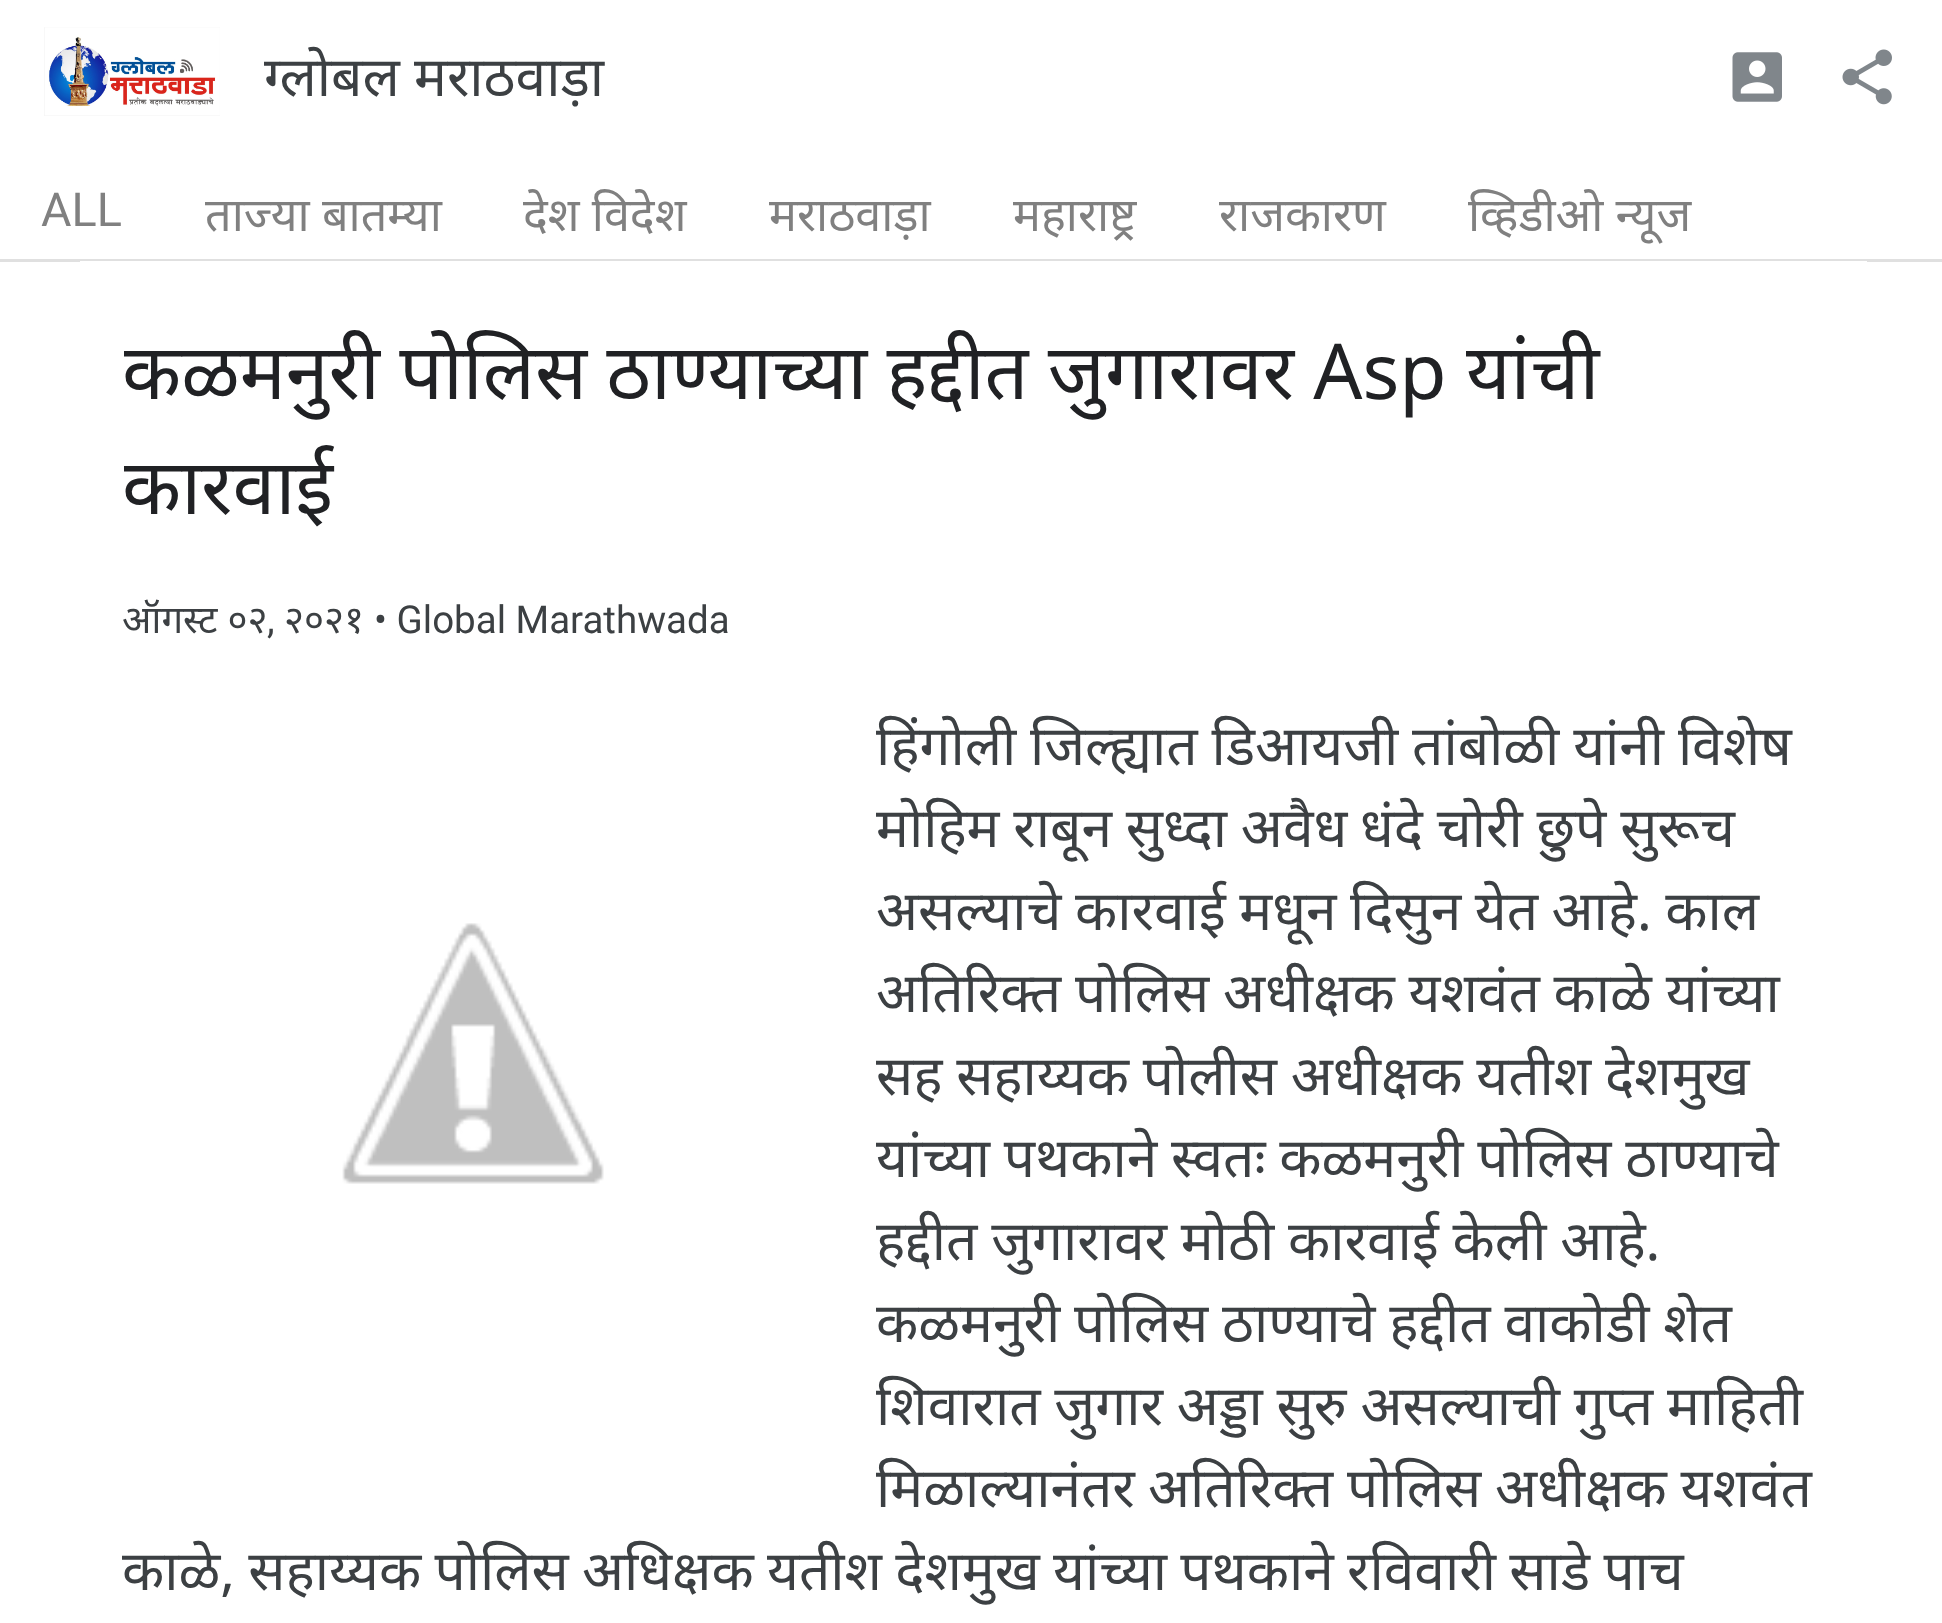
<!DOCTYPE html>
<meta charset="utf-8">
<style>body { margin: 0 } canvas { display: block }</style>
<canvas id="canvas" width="1942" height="1623"></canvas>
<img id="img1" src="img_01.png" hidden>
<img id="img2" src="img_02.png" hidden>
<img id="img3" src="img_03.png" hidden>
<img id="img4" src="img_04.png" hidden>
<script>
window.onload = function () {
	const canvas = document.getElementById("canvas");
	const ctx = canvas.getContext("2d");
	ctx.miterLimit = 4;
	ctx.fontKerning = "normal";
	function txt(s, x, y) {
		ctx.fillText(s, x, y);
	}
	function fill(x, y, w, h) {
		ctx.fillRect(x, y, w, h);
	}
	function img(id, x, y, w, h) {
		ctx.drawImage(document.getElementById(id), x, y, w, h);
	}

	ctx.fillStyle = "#FFFFFF";
	fill(0, 0, 1942, 1623);
	ctx.fillStyle = "#E0E0E0";
	fill(0, 259, 1942, 3);
	img("img1", 44, 27, 176, 89);
	img("img2", 1732, 52, 50, 50);
	img("img3", 1842, 49, 50, 56);
	ctx.fillStyle = "#FFFFFF";
	fill(80, 261, 1787, 1);
	img("img4", 342, 923, 262, 261);
	ctx.font = "55px Noto Sans";
	ctx.fillStyle = "#3C4043";
	txt("ग्लोबल मराठवाड़ा", 264, 96);
	ctx.font = "46.75px Roboto";
	ctx.fillStyle = "#808080";
	txt("ALL", 41, 226);
	ctx.font = "46.75px Noto Sans";
	txt("ताज्या बातम्या", 205, 231);
	txt("देश विदेश", 523, 231);
	txt("मराठवाड़ा", 769, 231);
	txt("महाराष्ट्र", 1013, 231);
	txt("राजकारण", 1219, 231);
	txt("व्हिडीओ न्यूज", 1468, 231);
	ctx.save();
	ctx.beginPath();
	ctx.rect(124, 316, 1699, 231);
	ctx.clip();
	ctx.wordSpacing = "-0.75px";
	ctx.font = "77px Noto Sans";
	ctx.fillStyle = "#202124";
	txt("कळमनुरी पोलिस ठाण्याच्या हद्दीत जुगारावर Asp यांची", 122, 399);
	ctx.wordSpacing = "0px";
	txt("कारवाई", 122, 514);
	ctx.restore();
	ctx.font = "38.5px Noto Sans";
	ctx.fillStyle = "#3C4043";
	txt("ऑगस्ट ०२", 122, 633);
	ctx.font = "38.5px Roboto";
	txt(",", 267, 633);
	ctx.font = "38.5px Noto Sans";
	txt("२०२१", 284, 633);
	ctx.font = "38.5px Roboto";
	txt("• Global Marathwada", 374, 633);
	ctx.wordSpacing = "-0.5px";
	ctx.font = "55px Noto Sans";
	txt("हिंगोली जिल्ह्यात डिआयजी तांबोळी यांनी विशेष", 876, 765);
	txt("मोहिम राबून सुध्दा अवैध", 876, 847);
	txt("धंदे चोरी छुपे सुरूच", 1360, 847);
	ctx.wordSpacing = "-0.75px";
	txt("असल्याचे कारवाई मधून दिसुन येत आहे. काल", 876, 930);
	ctx.wordSpacing = "-0.5px";
	txt("अतिरिक्त पोलिस अधीक्षक यशवंत काळे यांच्या", 876, 1012);
	txt("सह सहाय्यक पोलीस अधीक्षक यतीश देशमुख", 876, 1095);
	txt("यांच्या पथकाने स्वतः कळमनुरी पोलिस ठाण्याचे", 876, 1177);
	txt("हद्दीत जुगारावर मोठी कारवाई केली आहे.", 876, 1260);
	txt("कळमनुरी पोलिस ठाण्याचे हद्दीत वाकोडी शेत", 876, 1342);
	txt("शिवारात जुगार अड्डा सुरु असल्याची गुप्त माहिती", 876, 1425);
	ctx.wordSpacing = "0px";
	txt("मिळाल्यानंतर", 876, 1507);
	ctx.wordSpacing = "-0.5px";
	txt("अतिरिक्त पोलिस अधीक्षक यशवंत", 1148, 1507);
	ctx.wordSpacing = "-1px";
	txt("काळे, सहाय्यक पोलिस अधिक्षक यतीश देशमुख यांच्या पथकाने रविवारी साडे पाच", 122, 1590);
};
</script>
